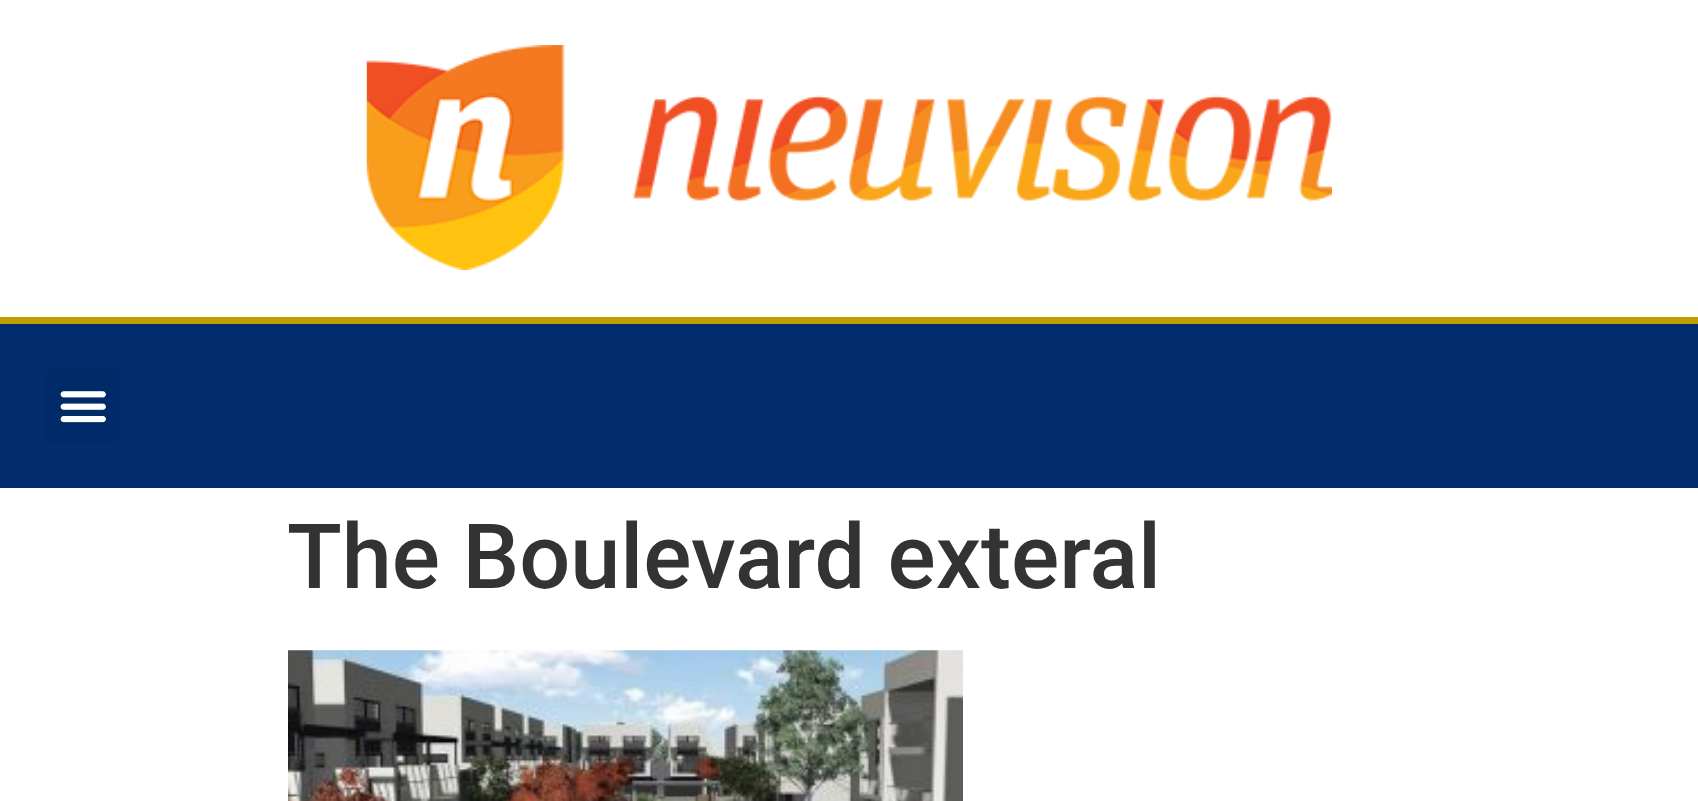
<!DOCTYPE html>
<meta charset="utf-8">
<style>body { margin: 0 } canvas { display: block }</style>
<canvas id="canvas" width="1698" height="801"></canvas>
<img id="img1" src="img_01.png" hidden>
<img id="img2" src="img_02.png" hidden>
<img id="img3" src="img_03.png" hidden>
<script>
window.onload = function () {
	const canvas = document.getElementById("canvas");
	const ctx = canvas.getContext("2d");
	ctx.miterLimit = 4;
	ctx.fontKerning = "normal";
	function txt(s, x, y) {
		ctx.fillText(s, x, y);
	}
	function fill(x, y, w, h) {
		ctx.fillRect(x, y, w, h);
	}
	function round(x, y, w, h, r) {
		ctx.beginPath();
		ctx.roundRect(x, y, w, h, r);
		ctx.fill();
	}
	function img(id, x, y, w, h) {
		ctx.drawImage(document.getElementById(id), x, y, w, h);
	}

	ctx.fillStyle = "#FFFFFF";
	fill(0, 0, 1698, 801);
	img("img1", 366, 45, 966, 225);
	ctx.fillStyle = "#012C6D";
	fill(0, 324, 1698, 164);
	ctx.fillStyle = "#BF9F00";
	fill(0, 317, 1698, 7);
	ctx.fillStyle = "#012A68";
	round(45, 369, 74, 74, 7);
	img("img2", 60, 391, 46, 32);
	img("img3", 288, 650, 675, 151);
	ctx.font = "500 90px Roboto";
	ctx.fillStyle = "#333333";
	txt("The Boulevard exteral", 287, 588);
};
</script>
